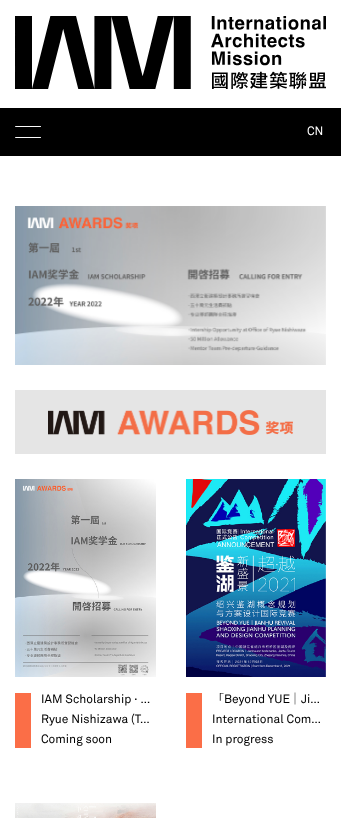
<!DOCTYPE html>
<meta charset="utf-8">
<style>body { margin: 0 } canvas { display: block }</style>
<canvas id="canvas" width="341" height="818"></canvas>
<img id="img1" src="img_01.png" hidden>
<img id="img2" src="img_02.png" hidden>
<img id="img3" src="img_03.png" hidden>
<img id="img4" src="img_04.png" hidden>
<img id="img5" src="img_05.png" hidden>
<img id="img6" src="img_06.png" hidden>
<img id="img7" src="img_07.png" hidden>
<script>
window.onload = function () {
	const canvas = document.getElementById("canvas");
	const ctx = canvas.getContext("2d");
	ctx.miterLimit = 4;
	ctx.fontKerning = "normal";
	function txt(s, x, y) {
		ctx.fillText(s, x, y);
	}
	function fill(x, y, w, h) {
		ctx.fillRect(x, y, w, h);
	}
	function img(id, x, y, w, h) {
		ctx.drawImage(document.getElementById(id), x, y, w, h);
	}

	ctx.fillStyle = "#FFFFFF";
	fill(0, 0, 341, 818);
	img("img1", 15, 16, 311, 73);
	ctx.fillStyle = "#000000";
	fill(0, 108, 341, 48);
	img("img2", 15, 126, 26, 1);
	img("img2", 15, 137, 26, 1);
	img("img3", 15, 206, 311, 159);
	ctx.fillStyle = "#E5E5E5";
	fill(15, 390, 311, 64);
	img("img4", 48, 410, 245, 25);
	img("img5", 15, 479, 141, 198);
	ctx.fillStyle = "#FB6E47";
	fill(15, 693, 16, 55);
	img("img6", 186, 479, 140, 198);
	fill(186, 693, 16, 55);
	img("img7", 15, 803, 141, 15);
	ctx.font = "12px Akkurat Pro";
	ctx.fillStyle = "#FFFFFF";
	txt("CN", 307, 135);
	ctx.fillStyle = "#000000";
	txt("IAM Scholarship · …", 41, 703);
	txt("Ryue Nishizawa (T…", 41, 723);
	txt("Coming soon", 41, 743);
	ctx.save();
	ctx.beginPath();
	ctx.rect(212, 693, 114, 15);
	ctx.clip();
	ctx.font = "300 12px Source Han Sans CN";
	txt("「", 212, 703);
	ctx.restore();
	txt("Beyond YUE", 224, 703);
	ctx.font = "300 12px Source Han Sans CN";
	txt("｜", 289, 703);
	ctx.font = "12px Akkurat Pro";
	txt("Ji…", 301, 703);
	txt("International Com…", 212, 723);
	txt("In progress", 212, 743);
};
</script>
